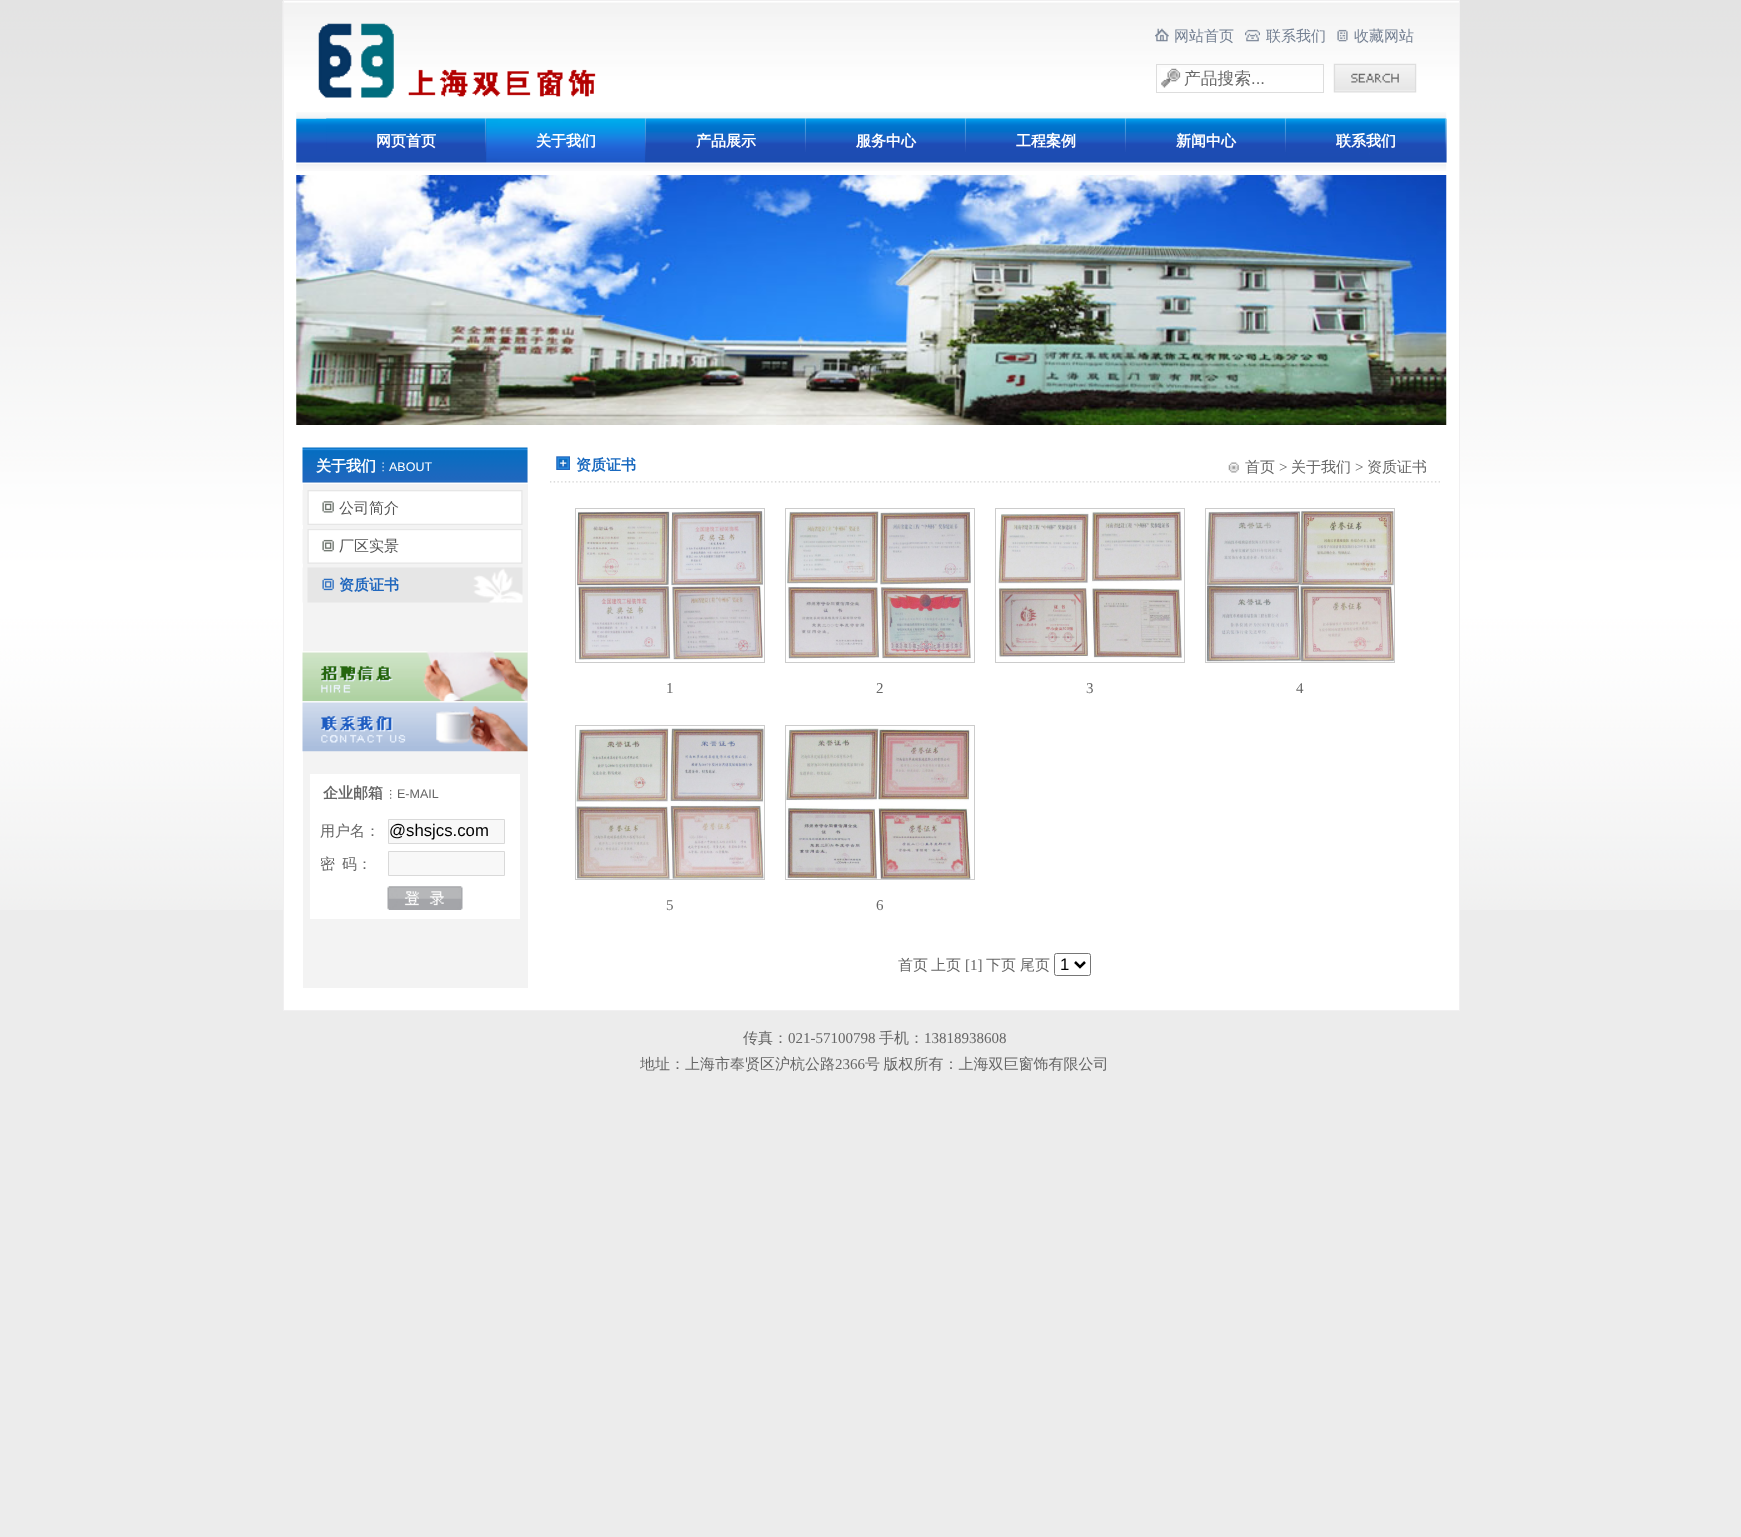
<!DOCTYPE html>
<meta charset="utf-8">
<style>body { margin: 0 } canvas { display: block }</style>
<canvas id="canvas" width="1741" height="1537"></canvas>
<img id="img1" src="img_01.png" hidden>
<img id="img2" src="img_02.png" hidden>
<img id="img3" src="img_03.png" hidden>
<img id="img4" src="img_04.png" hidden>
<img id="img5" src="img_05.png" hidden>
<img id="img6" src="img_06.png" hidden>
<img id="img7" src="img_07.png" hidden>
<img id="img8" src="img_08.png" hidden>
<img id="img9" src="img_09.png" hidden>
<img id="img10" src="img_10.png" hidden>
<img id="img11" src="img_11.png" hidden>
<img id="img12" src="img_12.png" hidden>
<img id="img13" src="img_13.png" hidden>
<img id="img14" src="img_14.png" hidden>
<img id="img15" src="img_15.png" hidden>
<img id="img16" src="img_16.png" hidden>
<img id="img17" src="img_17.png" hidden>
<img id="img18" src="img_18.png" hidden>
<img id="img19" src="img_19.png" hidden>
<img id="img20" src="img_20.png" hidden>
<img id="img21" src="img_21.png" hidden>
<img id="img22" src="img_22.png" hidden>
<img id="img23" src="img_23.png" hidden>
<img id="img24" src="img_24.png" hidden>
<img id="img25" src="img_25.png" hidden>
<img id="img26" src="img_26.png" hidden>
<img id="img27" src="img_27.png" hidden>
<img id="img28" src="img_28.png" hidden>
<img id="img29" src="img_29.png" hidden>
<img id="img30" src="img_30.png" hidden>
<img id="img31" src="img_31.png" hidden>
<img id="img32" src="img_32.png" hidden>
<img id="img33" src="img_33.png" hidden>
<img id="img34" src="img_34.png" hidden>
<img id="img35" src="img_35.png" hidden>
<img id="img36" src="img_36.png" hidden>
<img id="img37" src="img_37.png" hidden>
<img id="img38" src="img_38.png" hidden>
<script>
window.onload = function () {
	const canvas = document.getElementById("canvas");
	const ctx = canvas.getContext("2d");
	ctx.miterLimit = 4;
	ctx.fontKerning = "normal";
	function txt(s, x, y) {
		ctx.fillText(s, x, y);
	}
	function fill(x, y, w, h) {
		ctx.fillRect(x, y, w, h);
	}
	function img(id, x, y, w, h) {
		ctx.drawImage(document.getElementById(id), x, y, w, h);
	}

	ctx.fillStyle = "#ECECEC";
	fill(0, 0, 1741, 1537);
	img("img1", 0, 0, 1741, 910);
	ctx.fillStyle = "#FFFFFF";
	fill(284, 1, 1175, 1009);
	img("img2", 282, 1, 1177, 159);
	ctx.strokeStyle = "#F1F0F1";
	ctx.strokeRect(283.5, 0.5, 1176, 1010);
	img("img3", 296, 112, 1151, 7);
	img("img4", 318, 23, 278, 75);
	img("img5", 1155, 28, 14, 14);
	img("img6", 1245, 29, 15, 13);
	img("img7", 1337, 29, 11, 13);
	img("img8", 1161, 68, 20, 20);
	ctx.strokeStyle = "#DDDDDD";
	ctx.strokeRect(1156.5, 64.5, 167, 28);
	img("img9", 1333, 63, 84, 30);
	img("img10", 296, 118, 1151, 45);
	img("img11", 326, 118, 161, 34);
	img("img12", 326, 118, 161, 27);
	img("img13", 486, 118, 161, 34);
	img("img14", 486, 118, 161, 45);
	img("img15", 646, 118, 161, 34);
	img("img16", 646, 118, 161, 27);
	img("img13", 806, 118, 161, 34);
	img("img16", 806, 118, 161, 27);
	img("img13", 966, 118, 161, 34);
	img("img16", 966, 118, 161, 27);
	img("img13", 1126, 118, 161, 34);
	img("img16", 1126, 118, 161, 27);
	img("img17", 1286, 118, 161, 45);
	img("img18", 1286, 118, 161, 45);
	img("img19", 296, 163, 1151, 8);
	img("img20", 296, 175, 1151, 250);
	ctx.fillStyle = "#F3F3F3";
	fill(303, 448, 225, 540);
	img("img21", 302, 447, 226, 36);
	ctx.fillStyle = "#FFFFFF";
	fill(303, 483, 225, 1);
	img("img22", 382, 462, 2, 10);
	img("img23", 302, 490, 221, 35);
	img("img24", 302, 529, 221, 35);
	img("img25", 302, 567, 221, 36);
	img("img26", 302, 651, 226, 51);
	img("img27", 302, 701, 226, 51);
	fill(310, 774, 210, 145);
	img("img28", 390, 790, 2, 9);
	ctx.fillStyle = "#F8F8F8";
	ctx.beginPath();
	ctx.rect(388.5, 819.5, 116, 24);
	ctx.fill();
	ctx.strokeStyle = "#D9D9D9";
	ctx.stroke();
	ctx.beginPath();
	ctx.rect(388.5, 851.5, 116, 24);
	ctx.fill();
	ctx.stroke();
	img("img29", 387, 886, 76, 24);
	img("img30", 550, 481, 890, 2);
	img("img31", 556, 456, 14, 14);
	img("img32", 1228, 462, 11, 11);
	ctx.strokeStyle = "#CCCCCC";
	ctx.strokeRect(575.5, 508.5, 189, 154);
	img("img33", 577, 511, 187, 149);
	ctx.strokeRect(785.5, 508.5, 189, 154);
	img("img34", 787, 511, 184, 148);
	ctx.strokeRect(995.5, 508.5, 189, 154);
	img("img35", 998, 511, 184, 147);
	ctx.strokeRect(1205.5, 508.5, 189, 154);
	img("img36", 1206, 511, 188, 151);
	ctx.strokeRect(575.5, 725.5, 189, 154);
	img("img37", 576, 728, 188, 151);
	ctx.strokeRect(785.5, 725.5, 189, 154);
	img("img38", 786, 728, 185, 151);
	ctx.beginPath();
	ctx.roundRect(1054.5, 953.5, 36, 22, 2);
	ctx.strokeStyle = "#767676";
	ctx.stroke();
	ctx.beginPath();
	ctx.moveTo(1075, 962);
	ctx.lineTo(1080, 967);
	ctx.lineTo(1085, 962);
	ctx.strokeStyle = "#000000";
	ctx.lineWidth = 2.5;
	ctx.stroke();
	ctx.font = "500 15px WenQuanYi Zen Hei";
	ctx.fillStyle = "#758193";
	txt("网站首页", 1174, 41);
	txt("联系我们", 1266, 41);
	txt("收藏网站", 1354, 41);
	ctx.font = "500 16.75px WenQuanYi Zen Hei";
	ctx.fillStyle = "#666666";
	txt("产品搜索", 1184, 84);
	ctx.font = "16.75px Liberation Sans";
	txt("...", 1251, 84);
	ctx.font = "bold 15px WenQuanYi Zen Hei";
	ctx.fillStyle = "#FFFFFF";
	txt("网页首页", 376, 146);
	txt("关于我们", 536, 146);
	txt("产品展示", 696, 146);
	txt("服务中心", 856, 146);
	txt("工程案例", 1016, 146);
	txt("新闻中心", 1176, 146);
	txt("联系我们", 1336, 146);
	txt("关于我们", 316, 471);
	ctx.font = "12.5px Liberation Sans";
	txt("ABOUT", 389, 471);
	ctx.font = "500 15px WenQuanYi Zen Hei";
	ctx.fillStyle = "#555555";
	txt("公司简介", 339, 513);
	txt("厂区实景", 339, 551);
	ctx.font = "bold 15px WenQuanYi Zen Hei";
	ctx.fillStyle = "#2067BE";
	txt("资质证书", 339, 590);
	ctx.fillStyle = "#666666";
	txt("企业邮箱", 323, 798);
	ctx.font = "12.5px Liberation Sans";
	txt("E-MAIL", 397, 798);
	ctx.font = "500 15px WenQuanYi Zen Hei";
	txt("用户名：", 320, 836);
	ctx.font = "16.75px Liberation Sans";
	ctx.fillStyle = "#000000";
	txt("@shsjcs.com", 389, 836);
	ctx.font = "500 15px WenQuanYi Zen Hei";
	ctx.fillStyle = "#666666";
	txt("密", 320, 869);
	txt("码：", 342, 869);
	ctx.font = "bold 15px WenQuanYi Zen Hei";
	ctx.fillStyle = "#1969BF";
	txt("资质证书", 576, 470);
	ctx.font = "500 15px WenQuanYi Zen Hei";
	ctx.fillStyle = "#666666";
	txt("首页", 1245, 472);
	ctx.font = "15px Liberation Serif";
	txt(">", 1279, 472);
	ctx.font = "500 15px WenQuanYi Zen Hei";
	txt("关于我们", 1291, 472);
	ctx.font = "15px Liberation Serif";
	txt(">", 1355, 472);
	ctx.font = "500 15px WenQuanYi Zen Hei";
	txt("资质证书", 1367, 472);
	ctx.font = "15px Liberation Serif";
	txt("1", 666, 693);
	txt("2", 876, 693);
	txt("3", 1086, 693);
	txt("4", 1296, 693);
	txt("5", 666, 910);
	txt("6", 876, 910);
	ctx.font = "500 15px WenQuanYi Zen Hei";
	txt("首页", 898, 970);
	txt("上页", 931, 970);
	ctx.font = "15px Liberation Serif";
	txt("[1]", 965, 970);
	ctx.font = "500 15px WenQuanYi Zen Hei";
	txt("下页", 986, 970);
	txt("尾页", 1020, 970);
	ctx.font = "16.75px Liberation Sans";
	ctx.fillStyle = "#000000";
	txt("1", 1060, 970);
	ctx.font = "500 15px WenQuanYi Zen Hei";
	ctx.fillStyle = "#666666";
	txt("传真：", 743, 1043);
	ctx.font = "15px Liberation Serif";
	txt("021-57100798", 788, 1043);
	ctx.font = "500 15px WenQuanYi Zen Hei";
	txt("手机：", 879, 1043);
	ctx.font = "15px Liberation Serif";
	txt("13818938608", 924, 1043);
	ctx.font = "500 15px WenQuanYi Zen Hei";
	txt("地址：上海市奉贤区沪杭公路", 640, 1069);
	ctx.font = "15px Liberation Serif";
	txt("2366", 835, 1069);
	ctx.wordSpacing = "-1px";
	ctx.font = "500 15px WenQuanYi Zen Hei";
	txt("号 版权所有：上海双巨窗饰有限公司", 865, 1069);
};
</script>
